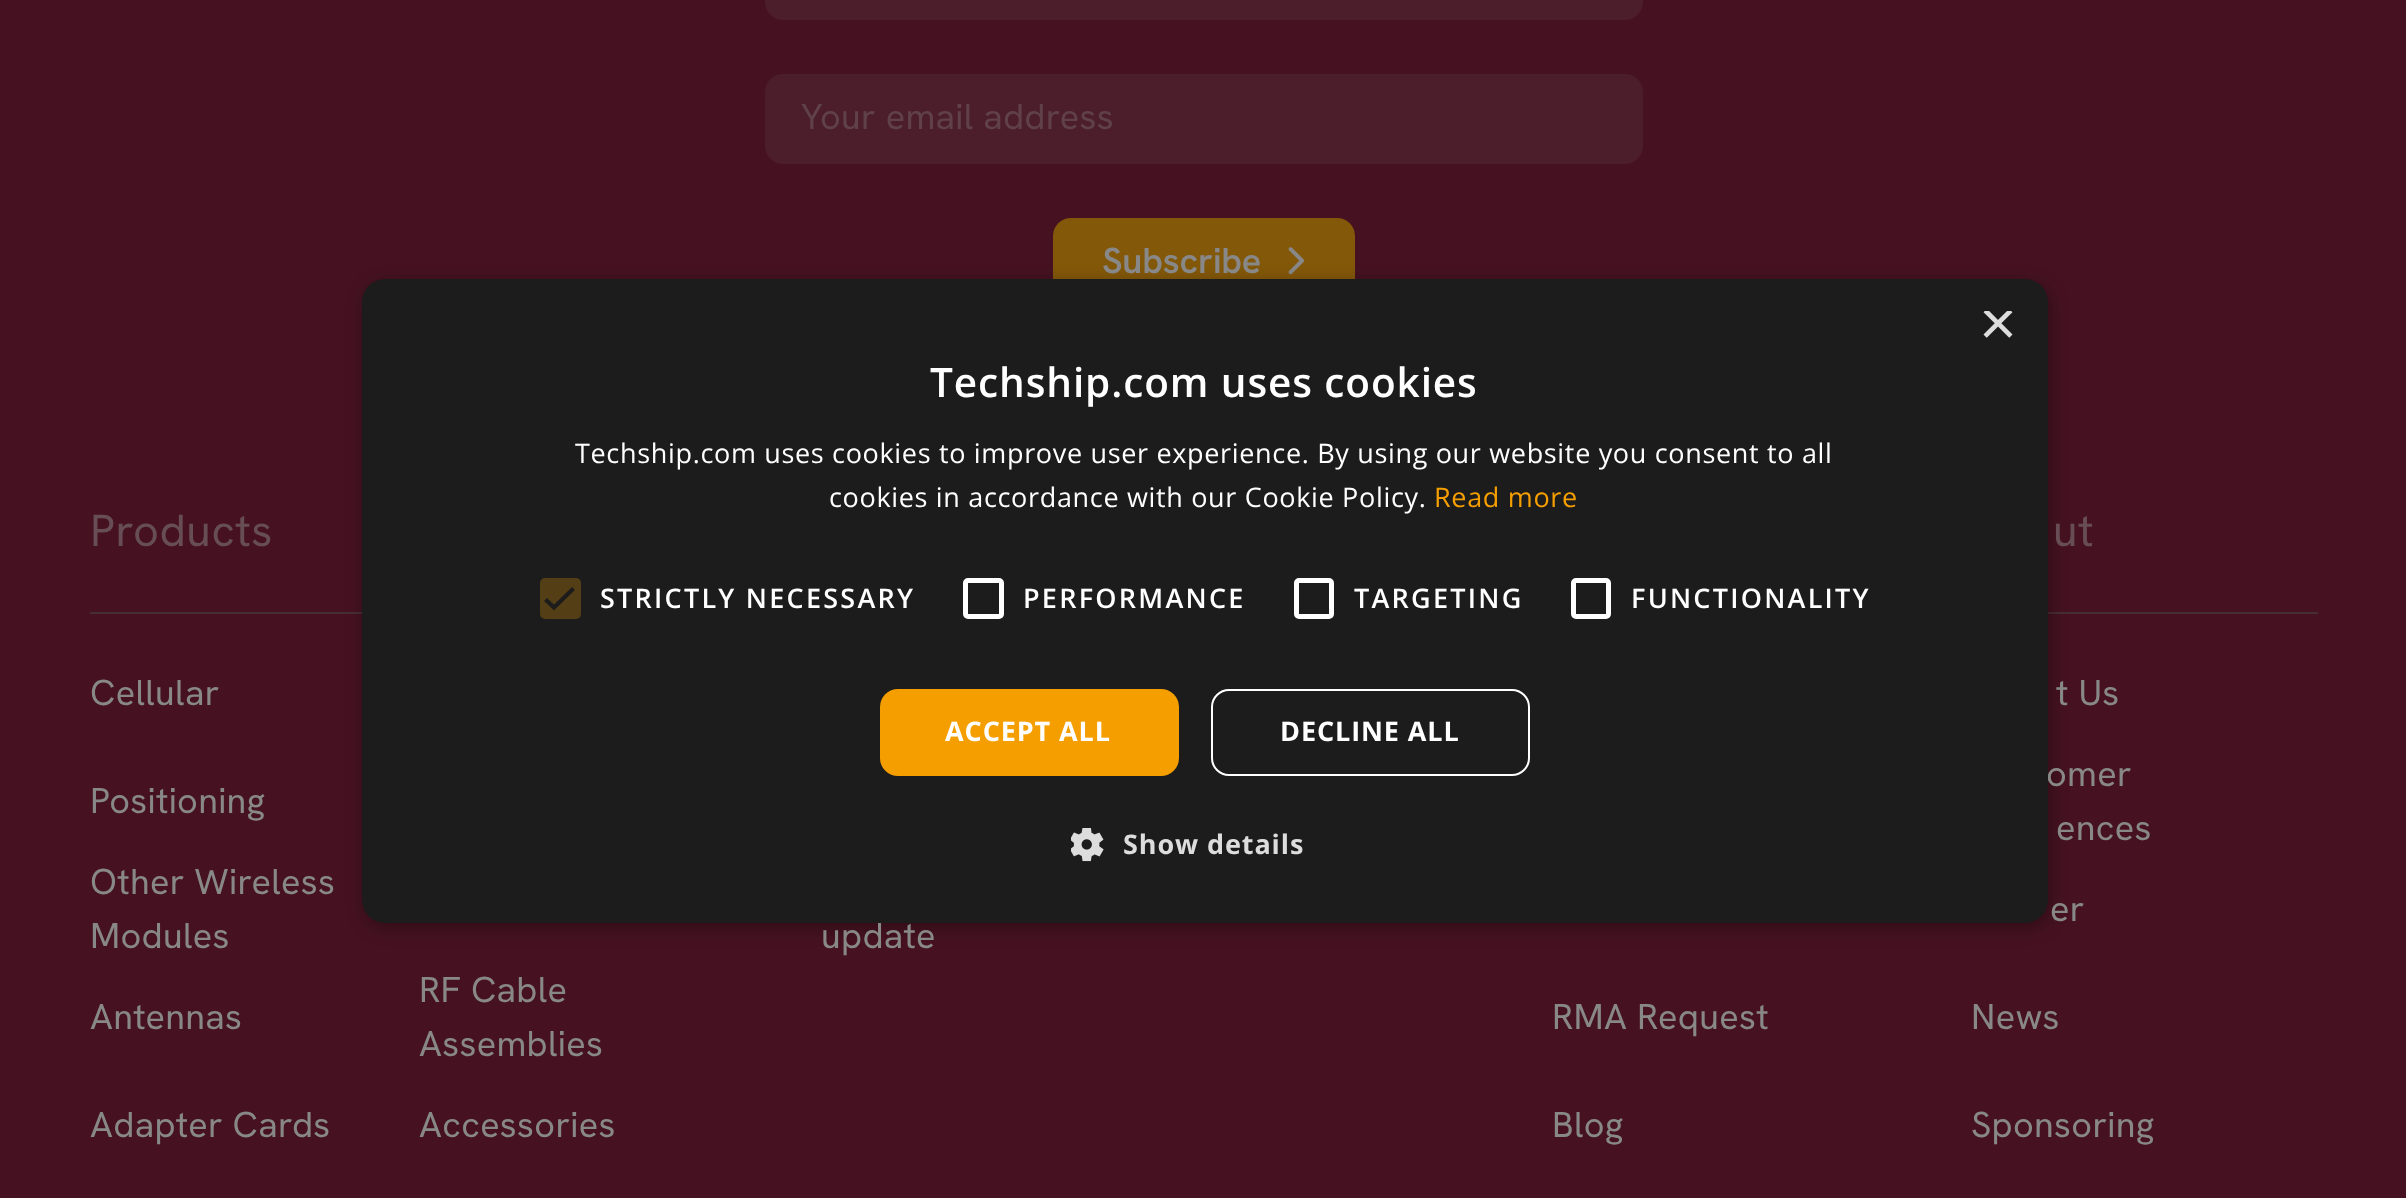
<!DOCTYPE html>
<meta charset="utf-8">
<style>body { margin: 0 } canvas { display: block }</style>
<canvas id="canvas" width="2406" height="1198"></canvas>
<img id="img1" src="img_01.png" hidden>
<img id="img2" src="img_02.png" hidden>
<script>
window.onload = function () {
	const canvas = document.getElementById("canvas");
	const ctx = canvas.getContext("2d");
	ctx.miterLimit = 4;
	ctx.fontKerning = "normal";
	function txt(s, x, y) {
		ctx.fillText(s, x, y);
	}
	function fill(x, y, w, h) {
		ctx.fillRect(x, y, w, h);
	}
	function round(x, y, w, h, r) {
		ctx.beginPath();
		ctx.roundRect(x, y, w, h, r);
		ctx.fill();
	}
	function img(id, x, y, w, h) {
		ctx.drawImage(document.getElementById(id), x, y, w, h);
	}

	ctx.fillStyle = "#461221";
	fill(0, 0, 2406, 1198);
	ctx.fillStyle = "#4C1E2C";
	round(765, -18, 878, 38, 18);
	round(765, 74, 878, 90, 18);
	ctx.fillStyle = "#835809";
	round(1053, 218, 302, 90, 18);
	img("img1", 1288, 247, 16, 28);
	ctx.fillStyle = "#472E35";
	fill(90, 612, 272, 2);
	fill(2048, 612, 270, 2);
	ctx.fillStyle = "rgba(0, 0, 0, 0.35)";
	ctx.filter = "blur(9px)";
	ctx.beginPath();
	ctx.roundRect(365, 284, 1685, 643, 23);
	ctx.fill();
	ctx.filter = "none";
	ctx.letterSpacing = "0.3px";
	ctx.font = "36px Hanken Grotesk";
	ctx.fillStyle = "#60414A";
	txt("Your email address", 801, 129);
	ctx.letterSpacing = "-0.25px";
	ctx.font = "600 36px Hanken Grotesk";
	ctx.fillStyle = "#888888";
	txt("Subscribe", 1102, 273);
	ctx.letterSpacing = "0.5px";
	ctx.font = "45px Hanken Grotesk";
	ctx.fillStyle = "#674D55";
	txt("Products", 90, 546);
	ctx.letterSpacing = "0.3px";
	ctx.font = "36px Hanken Grotesk";
	ctx.fillStyle = "#888888";
	txt("Cellular", 90, 705);
	txt("Positioning", 90, 813);
	txt("Other Wireless", 90, 894);
	txt("Modules", 90, 948);
	txt("Antennas", 90, 1029);
	txt("RF Cable", 419, 1002);
	txt("Assemblies", 419, 1056);
	txt("Adapter Cards", 90, 1137);
	txt("Accessories", 419, 1137);
	txt("update", 821, 948);
	ctx.letterSpacing = "0.5px";
	ctx.font = "45px Hanken Grotesk";
	ctx.fillStyle = "#674D55";
	txt("ut", 2053, 546);
	ctx.letterSpacing = "0.3px";
	ctx.font = "36px Hanken Grotesk";
	ctx.fillStyle = "#888888";
	txt("t Us", 2056, 705);
	txt("omer", 2046, 786);
	txt("ences", 2056, 840);
	txt("er", 2050, 921);
	txt("News", 1971, 1029);
	txt("Sponsoring", 1971, 1137);
	txt("RMA Request", 1552, 1029);
	txt("Blog", 1552, 1137);
	ctx.fillStyle = "#1C1C1C";
	round(362, 279, 1686, 644, 23);
	ctx.save();
	ctx.beginPath();
	ctx.rect(1980, 311, 34, 33);
	ctx.clip();
	ctx.letterSpacing = "0px";
	ctx.font = "65px Liberation Sans";
	ctx.fillStyle = "#DDDDDD";
	txt("×", 1979, 345);
	ctx.restore();
	ctx.letterSpacing = "0.9px";
	ctx.font = "600 40.5px Open Sans";
	ctx.fillStyle = "#FFFFFF";
	txt("Techship.com uses cookies", 930, 397);
	ctx.letterSpacing = "0.67px";
	ctx.font = "27px Open Sans";
	txt("Techship.com uses cookies to improve user experience. By using our website you consent to all", 575, 463);
	txt("cookies in accordance with our Cookie Policy.", 829, 507);
	ctx.fillStyle = "#F59E00";
	txt("Read more", 1434, 507);
	ctx.fillStyle = "#543E15";
	round(540, 578, 41, 41, 5);
	ctx.beginPath();
	ctx.moveTo(545.5, 599.5);
	ctx.lineTo(554, 607.5);
	ctx.lineTo(573.5, 588.5);
	ctx.strokeStyle = "#1C1C1C";
	ctx.lineWidth = 4.1;
	ctx.stroke();
	ctx.letterSpacing = "2.25px";
	ctx.font = "600 27px Open Sans";
	ctx.fillStyle = "#FFFFFF";
	txt("STRICTLY NECESSARY", 600, 608);
	ctx.beginPath();
	ctx.roundRect(965.5, 580.5, 36, 36, 2.5);
	ctx.strokeStyle = "#FFFFFF";
	ctx.lineWidth = 5;
	ctx.stroke();
	txt("PERFORMANCE", 1023, 608);
	ctx.beginPath();
	ctx.roundRect(1296.5, 580.5, 35, 36, 2.5);
	ctx.stroke();
	txt("TARGETING", 1354, 608);
	ctx.beginPath();
	ctx.roundRect(1573.5, 580.5, 35, 36, 2.5);
	ctx.stroke();
	txt("FUNCTIONALITY", 1631, 608);
	ctx.fillStyle = "#F59E00";
	round(880, 689, 299, 87, 18);
	ctx.letterSpacing = "0.9px";
	ctx.font = "bold 27px Open Sans";
	ctx.fillStyle = "#FFFFFF";
	txt("ACCEPT ALL", 945, 741);
	ctx.beginPath();
	ctx.roundRect(1212, 690, 317, 85, 17);
	ctx.lineWidth = 2;
	ctx.stroke();
	txt("DECLINE ALL", 1280, 741);
	img("img2", 1071, 828, 33, 34);
	ctx.fillStyle = "#DDDDDD";
	txt("Show details", 1123, 854);
};
</script>
